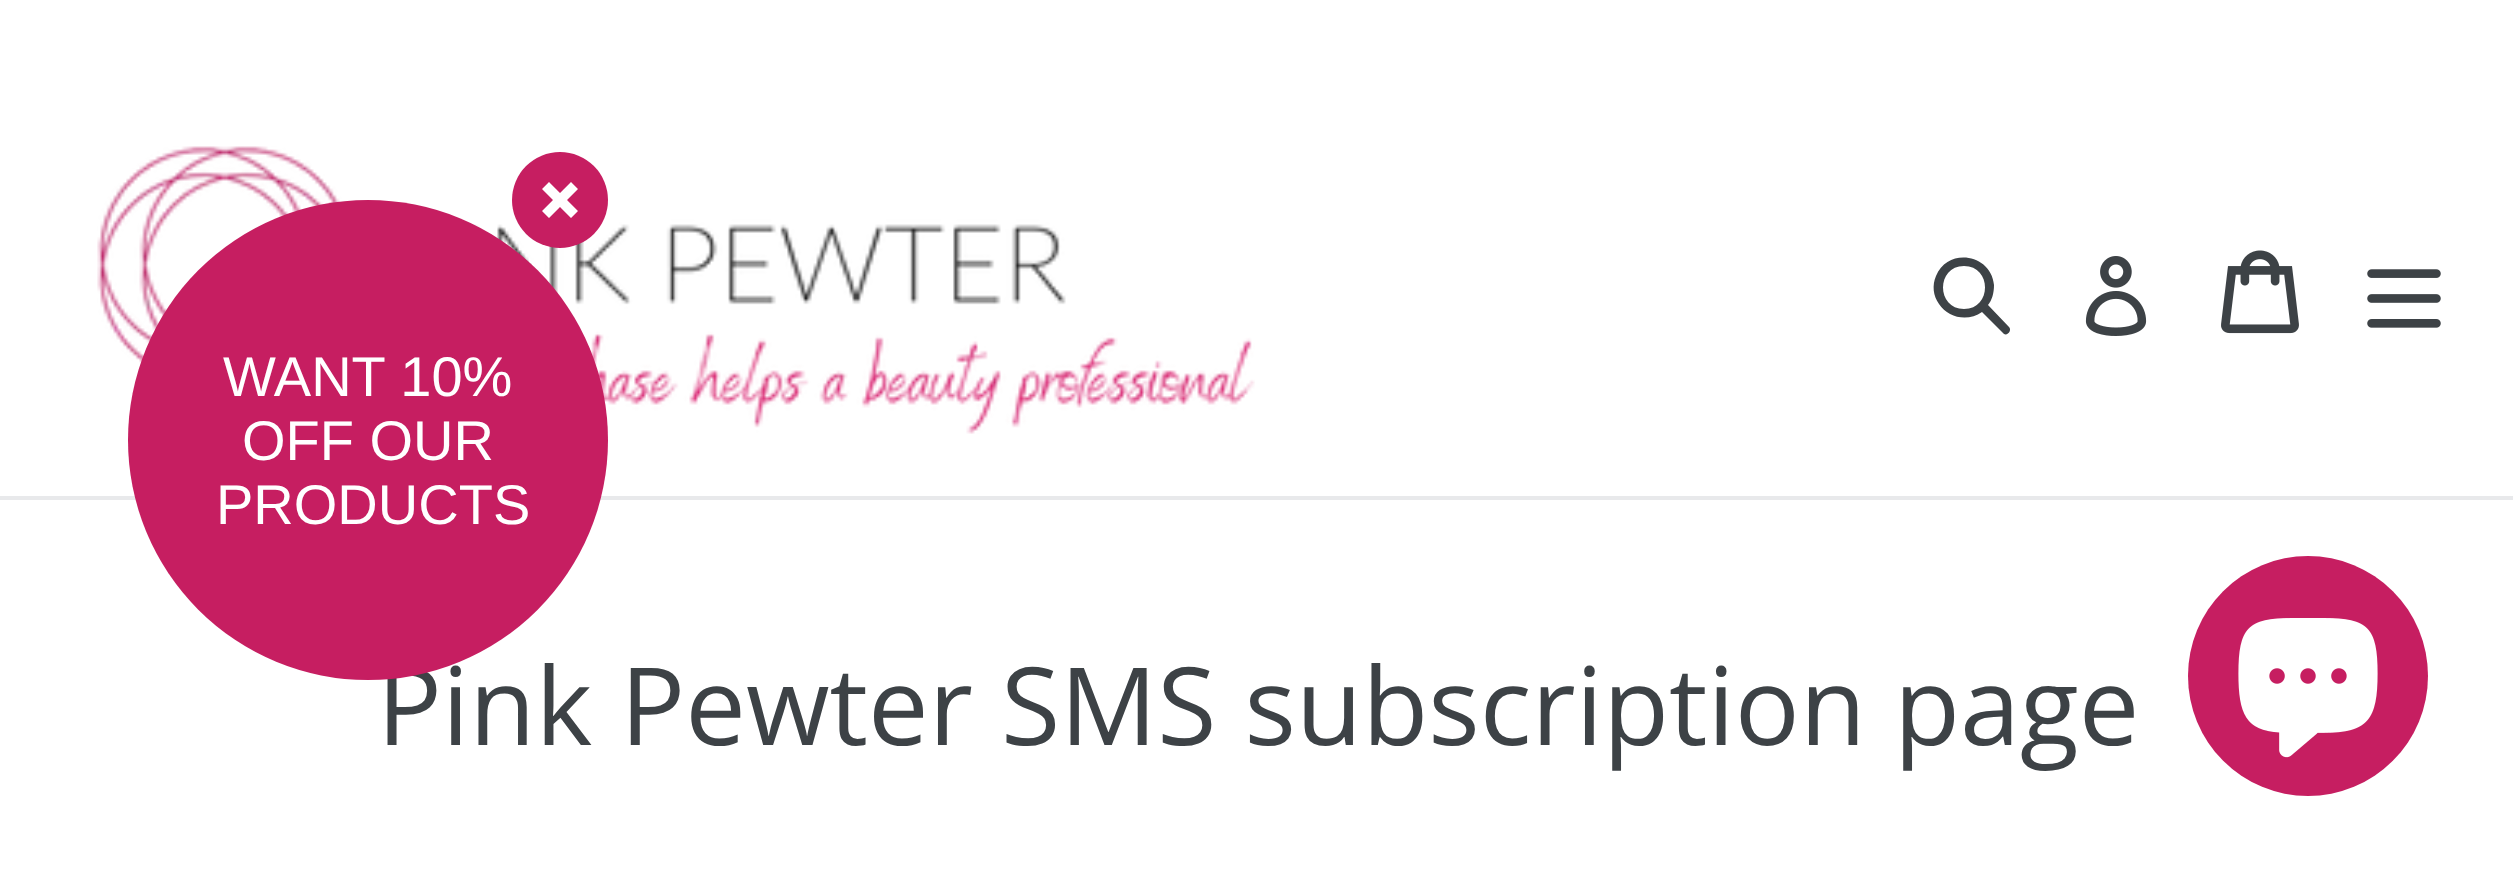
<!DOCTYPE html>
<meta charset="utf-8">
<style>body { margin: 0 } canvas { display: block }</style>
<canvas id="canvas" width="2513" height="877"></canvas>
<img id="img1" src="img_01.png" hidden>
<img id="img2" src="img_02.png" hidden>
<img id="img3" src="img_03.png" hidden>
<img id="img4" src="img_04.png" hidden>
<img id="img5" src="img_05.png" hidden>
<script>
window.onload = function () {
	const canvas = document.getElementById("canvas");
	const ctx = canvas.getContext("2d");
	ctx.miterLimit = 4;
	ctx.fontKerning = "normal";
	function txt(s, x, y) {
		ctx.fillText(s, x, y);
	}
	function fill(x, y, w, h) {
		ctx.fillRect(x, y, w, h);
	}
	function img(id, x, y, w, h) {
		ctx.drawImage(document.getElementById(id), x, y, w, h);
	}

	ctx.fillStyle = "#FFFFFF";
	fill(0, 0, 2513, 877);
	ctx.fillStyle = "#E8E9EB";
	fill(0, 496, 2513, 4);
	img("img1", 97, 146, 1158, 288);
	ctx.fillStyle = "#3D4246";
	ctx.beginPath();
	ctx.moveTo(2009, 327);
	ctx.lineTo(1988, 305);
	ctx.bezierCurveTo(1992, 300, 1994, 293, 1994, 285);
	ctx.bezierCurveTo(1991, 254, 1948, 247, 1936, 276);
	ctx.bezierCurveTo(1932, 285, 1933, 296, 1939, 304);
	ctx.bezierCurveTo(1948, 318, 1968, 322, 1982, 312);
	ctx.lineTo(2004, 334);
	ctx.bezierCurveTo(2008, 336, 2012, 330, 2009, 327);
	ctx.closePath();
	ctx.moveTo(1964, 309);
	ctx.bezierCurveTo(1936, 309, 1936, 266, 1964, 266);
	ctx.bezierCurveTo(1992, 266, 1992, 309, 1964, 309);
	ctx.closePath();
	ctx.fill();
	img("img2", 2085, 256, 62, 80);
	img("img3", 2221, 250, 78, 84);
	img("img4", 2367, 269, 74, 59);
	ctx.fillStyle = "#C61E61";
	ctx.beginPath();
	ctx.arc(2308, 676, 120, 0, Math.PI * 2);
	ctx.fill();
	img("img5", 2238, 618, 140, 140);
	ctx.font = "108px Open Sans";
	ctx.fillStyle = "#3D4246";
	txt("Pink Pewter SMS subscription page", 377, 745);
	ctx.fillStyle = "#C61E61";
	ctx.beginPath();
	ctx.arc(368, 440, 240, 0, Math.PI * 2);
	ctx.fill();
	ctx.beginPath();
	ctx.arc(560, 200, 48, 0, Math.PI * 2);
	ctx.fill();
	ctx.fillStyle = "#FFFFFF";
	ctx.beginPath();
	ctx.moveTo(553, 200);
	ctx.lineTo(542, 189);
	ctx.lineTo(549, 182);
	ctx.lineTo(560, 193);
	ctx.lineTo(571, 182);
	ctx.lineTo(578, 189);
	ctx.lineTo(567, 200);
	ctx.lineTo(578, 211);
	ctx.lineTo(571, 218);
	ctx.lineTo(560, 207);
	ctx.lineTo(549, 218);
	ctx.lineTo(542, 211);
	ctx.closePath();
	ctx.fill("evenodd");
	ctx.font = "56px Liberation Sans";
	txt("PRODUCTS", 216, 524);
	txt("OFF OUR", 242, 460);
	txt("WANT 10%", 223, 396);
};
</script>
